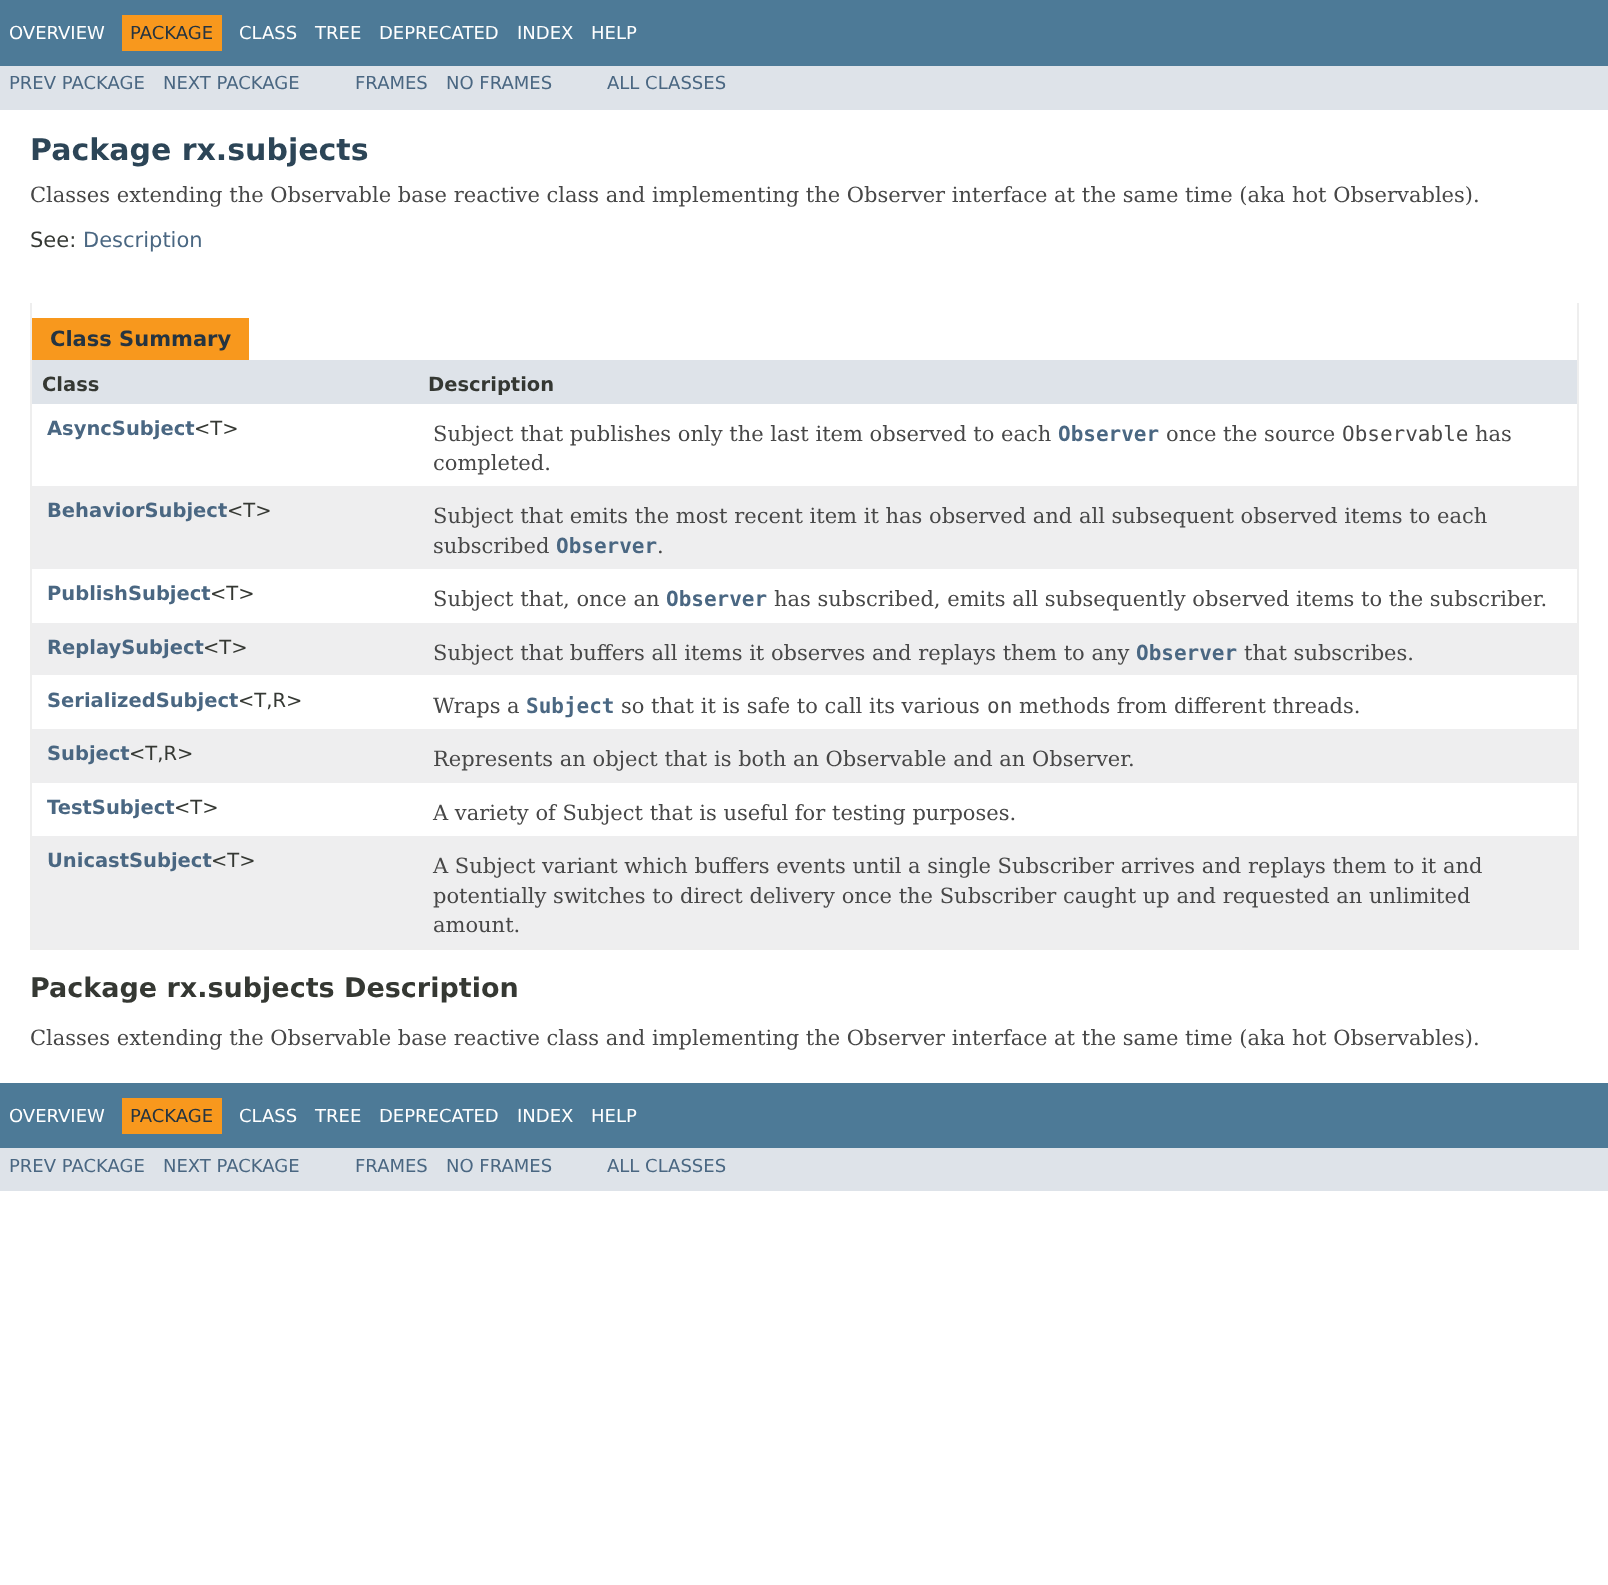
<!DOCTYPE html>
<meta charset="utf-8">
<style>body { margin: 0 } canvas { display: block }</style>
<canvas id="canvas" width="1608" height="1585"></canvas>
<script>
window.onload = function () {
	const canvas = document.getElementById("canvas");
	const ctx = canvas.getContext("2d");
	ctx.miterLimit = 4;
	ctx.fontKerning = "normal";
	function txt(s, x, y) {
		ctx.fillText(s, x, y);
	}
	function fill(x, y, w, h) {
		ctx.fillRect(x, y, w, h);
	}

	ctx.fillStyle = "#FFFFFF";
	fill(0, 0, 1608, 1585);
	ctx.fillStyle = "#4D7A97";
	fill(0, 0, 1608, 66);
	ctx.fillStyle = "#F8981D";
	fill(122, 15, 100, 36);
	ctx.fillStyle = "#DEE3E9";
	fill(0, 66, 1608, 44);
	ctx.fillStyle = "#EEEEEE";
	fill(1577, 303, 2, 647);
	fill(30, 948, 1548, 2);
	fill(30, 303, 2, 647);
	ctx.fillStyle = "#F8981D";
	fill(32, 318, 217, 42);
	ctx.fillStyle = "#DEE3E9";
	fill(32, 360, 1545, 44);
	ctx.fillStyle = "#EEEEEF";
	fill(32, 486, 1545, 83);
	fill(32, 623, 1545, 52);
	fill(32, 729, 1545, 54);
	fill(32, 836, 1545, 112);
	ctx.fillStyle = "#4D7A97";
	fill(0, 1083, 1608, 65);
	ctx.fillStyle = "#F8981D";
	fill(122, 1098, 100, 36);
	ctx.fillStyle = "#DEE3E9";
	fill(0, 1148, 1608, 43);
	ctx.font = "18px DejaVu Sans";
	ctx.fillStyle = "#FFFFFF";
	txt("OVERVIEW", 9, 39);
	ctx.fillStyle = "#253441";
	txt("PACKAGE", 130, 39);
	ctx.fillStyle = "#FFFFFF";
	txt("CLASS", 239, 39);
	txt("TREE", 315, 39);
	txt("DEPRECATED", 379, 39);
	txt("INDEX", 517, 39);
	txt("HELP", 591, 39);
	ctx.fillStyle = "#4A6782";
	txt("PREV PACKAGE", 9, 89);
	txt("NEXT PACKAGE", 163, 89);
	txt("FRAMES", 355, 89);
	txt("NO FRAMES", 446, 89);
	txt("ALL CLASSES", 607, 89);
	ctx.font = "bold 30px DejaVu Sans";
	ctx.fillStyle = "#2C4557";
	txt("Package rx.subjects", 30, 160);
	ctx.font = "21px DejaVu Serif";
	ctx.fillStyle = "#474747";
	txt("Classes extending the Observable base reactive class and implementing the Observer interface at the same time (aka hot Observables).", 30, 202);
	ctx.font = "21px DejaVu Sans";
	ctx.fillStyle = "#353833";
	txt("See:", 30, 247);
	ctx.fillStyle = "#4A6782";
	txt("Description", 83, 247);
	ctx.font = "bold 21px DejaVu Sans";
	ctx.fillStyle = "#253441";
	txt("Class Summary", 50, 346);
	ctx.font = "bold 19.5px DejaVu Sans";
	ctx.fillStyle = "#353833";
	txt("Class", 42, 391);
	txt("Description", 428, 391);
	ctx.fillStyle = "#4A6782";
	txt("AsyncSubject", 47, 435);
	ctx.font = "19.5px DejaVu Sans";
	ctx.fillStyle = "#353833";
	txt("<T>", 194, 435);
	ctx.font = "21px DejaVu Serif";
	ctx.fillStyle = "#474747";
	txt("Subject that publishes only the last item observed to each", 433, 441);
	ctx.font = "bold 21px DejaVu Sans Mono";
	ctx.fillStyle = "#4A6782";
	txt("Observer", 1058, 441);
	ctx.font = "21px DejaVu Serif";
	ctx.fillStyle = "#474747";
	txt("once the source", 1166, 441);
	ctx.font = "21px DejaVu Sans Mono";
	txt("Observable", 1342, 441);
	ctx.font = "21px DejaVu Serif";
	txt("has", 1475, 441);
	txt("completed.", 433, 470);
	ctx.font = "bold 19.5px DejaVu Sans";
	ctx.fillStyle = "#4A6782";
	txt("BehaviorSubject", 47, 517);
	ctx.font = "19.5px DejaVu Sans";
	ctx.fillStyle = "#353833";
	txt("<T>", 227, 517);
	ctx.font = "21px DejaVu Serif";
	ctx.fillStyle = "#474747";
	txt("Subject that emits the most recent item it has observed and all subsequent observed items to each", 433, 523);
	txt("subscribed", 433, 553);
	ctx.font = "bold 21px DejaVu Sans Mono";
	ctx.fillStyle = "#4A6782";
	txt("Observer", 556, 553);
	ctx.font = "21px DejaVu Serif";
	ctx.fillStyle = "#474747";
	txt(".", 657, 553);
	ctx.font = "bold 19.5px DejaVu Sans";
	ctx.fillStyle = "#4A6782";
	txt("PublishSubject", 47, 600);
	ctx.font = "19.5px DejaVu Sans";
	ctx.fillStyle = "#353833";
	txt("<T>", 210, 600);
	ctx.font = "21px DejaVu Serif";
	ctx.fillStyle = "#474747";
	txt("Subject that, once an", 433, 606);
	ctx.font = "bold 21px DejaVu Sans Mono";
	ctx.fillStyle = "#4A6782";
	txt("Observer", 666, 606);
	ctx.font = "21px DejaVu Serif";
	ctx.fillStyle = "#474747";
	txt("has subscribed, emits all subsequently observed items to the subscriber.", 774, 606);
	ctx.font = "bold 19.5px DejaVu Sans";
	ctx.fillStyle = "#4A6782";
	txt("ReplaySubject", 47, 654);
	ctx.font = "19.5px DejaVu Sans";
	ctx.fillStyle = "#353833";
	txt("<T>", 203, 654);
	ctx.font = "21px DejaVu Serif";
	ctx.fillStyle = "#474747";
	txt("Subject that buffers all items it observes and replays them to any", 433, 660);
	ctx.font = "bold 21px DejaVu Sans Mono";
	ctx.fillStyle = "#4A6782";
	txt("Observer", 1136, 660);
	ctx.font = "21px DejaVu Serif";
	ctx.fillStyle = "#474747";
	txt("that subscribes.", 1244, 660);
	ctx.font = "bold 19.5px DejaVu Sans";
	ctx.fillStyle = "#4A6782";
	txt("SerializedSubject", 47, 707);
	ctx.font = "19.5px DejaVu Sans";
	ctx.fillStyle = "#353833";
	txt("<T,R>", 238, 707);
	ctx.font = "21px DejaVu Serif";
	ctx.fillStyle = "#474747";
	txt("Wraps a", 433, 713);
	ctx.font = "bold 21px DejaVu Sans Mono";
	ctx.fillStyle = "#4A6782";
	txt("Subject", 526, 713);
	ctx.font = "21px DejaVu Serif";
	ctx.fillStyle = "#474747";
	txt("so that it is safe to call its various", 621, 713);
	ctx.font = "21px DejaVu Sans Mono";
	txt("on", 987, 713);
	ctx.font = "21px DejaVu Serif";
	txt("methods from different threads.", 1019, 713);
	ctx.font = "bold 19.5px DejaVu Sans";
	ctx.fillStyle = "#4A6782";
	txt("Subject", 47, 760);
	ctx.font = "19.5px DejaVu Sans";
	ctx.fillStyle = "#353833";
	txt("<T,R>", 129, 760);
	ctx.font = "21px DejaVu Serif";
	ctx.fillStyle = "#474747";
	txt("Represents an object that is both an Observable and an Observer.", 433, 766);
	ctx.font = "bold 19.5px DejaVu Sans";
	ctx.fillStyle = "#4A6782";
	txt("TestSubject", 47, 814);
	ctx.font = "19.5px DejaVu Sans";
	ctx.fillStyle = "#353833";
	txt("<T>", 174, 814);
	ctx.font = "21px DejaVu Serif";
	ctx.fillStyle = "#474747";
	txt("A variety of Subject that is useful for testing purposes.", 433, 820);
	ctx.font = "bold 19.5px DejaVu Sans";
	ctx.fillStyle = "#4A6782";
	txt("UnicastSubject", 47, 867);
	ctx.font = "19.5px DejaVu Sans";
	ctx.fillStyle = "#353833";
	txt("<T>", 211, 867);
	ctx.font = "21px DejaVu Serif";
	ctx.fillStyle = "#474747";
	txt("A Subject variant which buffers events until a single Subscriber arrives and replays them to it and", 433, 873);
	txt("potentially switches to direct delivery once the Subscriber caught up and requested an unlimited", 433, 903);
	txt("amount.", 433, 932);
	ctx.font = "bold 27px DejaVu Sans";
	ctx.fillStyle = "#353833";
	txt("Package rx.subjects Description", 30, 997);
	ctx.font = "21px DejaVu Serif";
	ctx.fillStyle = "#474747";
	txt("Classes extending the Observable base reactive class and implementing the Observer interface at the same time (aka hot Observables).", 30, 1045);
	ctx.font = "18px DejaVu Sans";
	ctx.fillStyle = "#FFFFFF";
	txt("OVERVIEW", 9, 1122);
	ctx.fillStyle = "#253441";
	txt("PACKAGE", 130, 1122);
	ctx.fillStyle = "#FFFFFF";
	txt("CLASS", 239, 1122);
	txt("TREE", 315, 1122);
	txt("DEPRECATED", 379, 1122);
	txt("INDEX", 517, 1122);
	txt("HELP", 591, 1122);
	ctx.fillStyle = "#4A6782";
	txt("PREV PACKAGE", 9, 1172);
	txt("NEXT PACKAGE", 163, 1172);
	txt("FRAMES", 355, 1172);
	txt("NO FRAMES", 446, 1172);
	txt("ALL CLASSES", 607, 1172);
};
</script>
